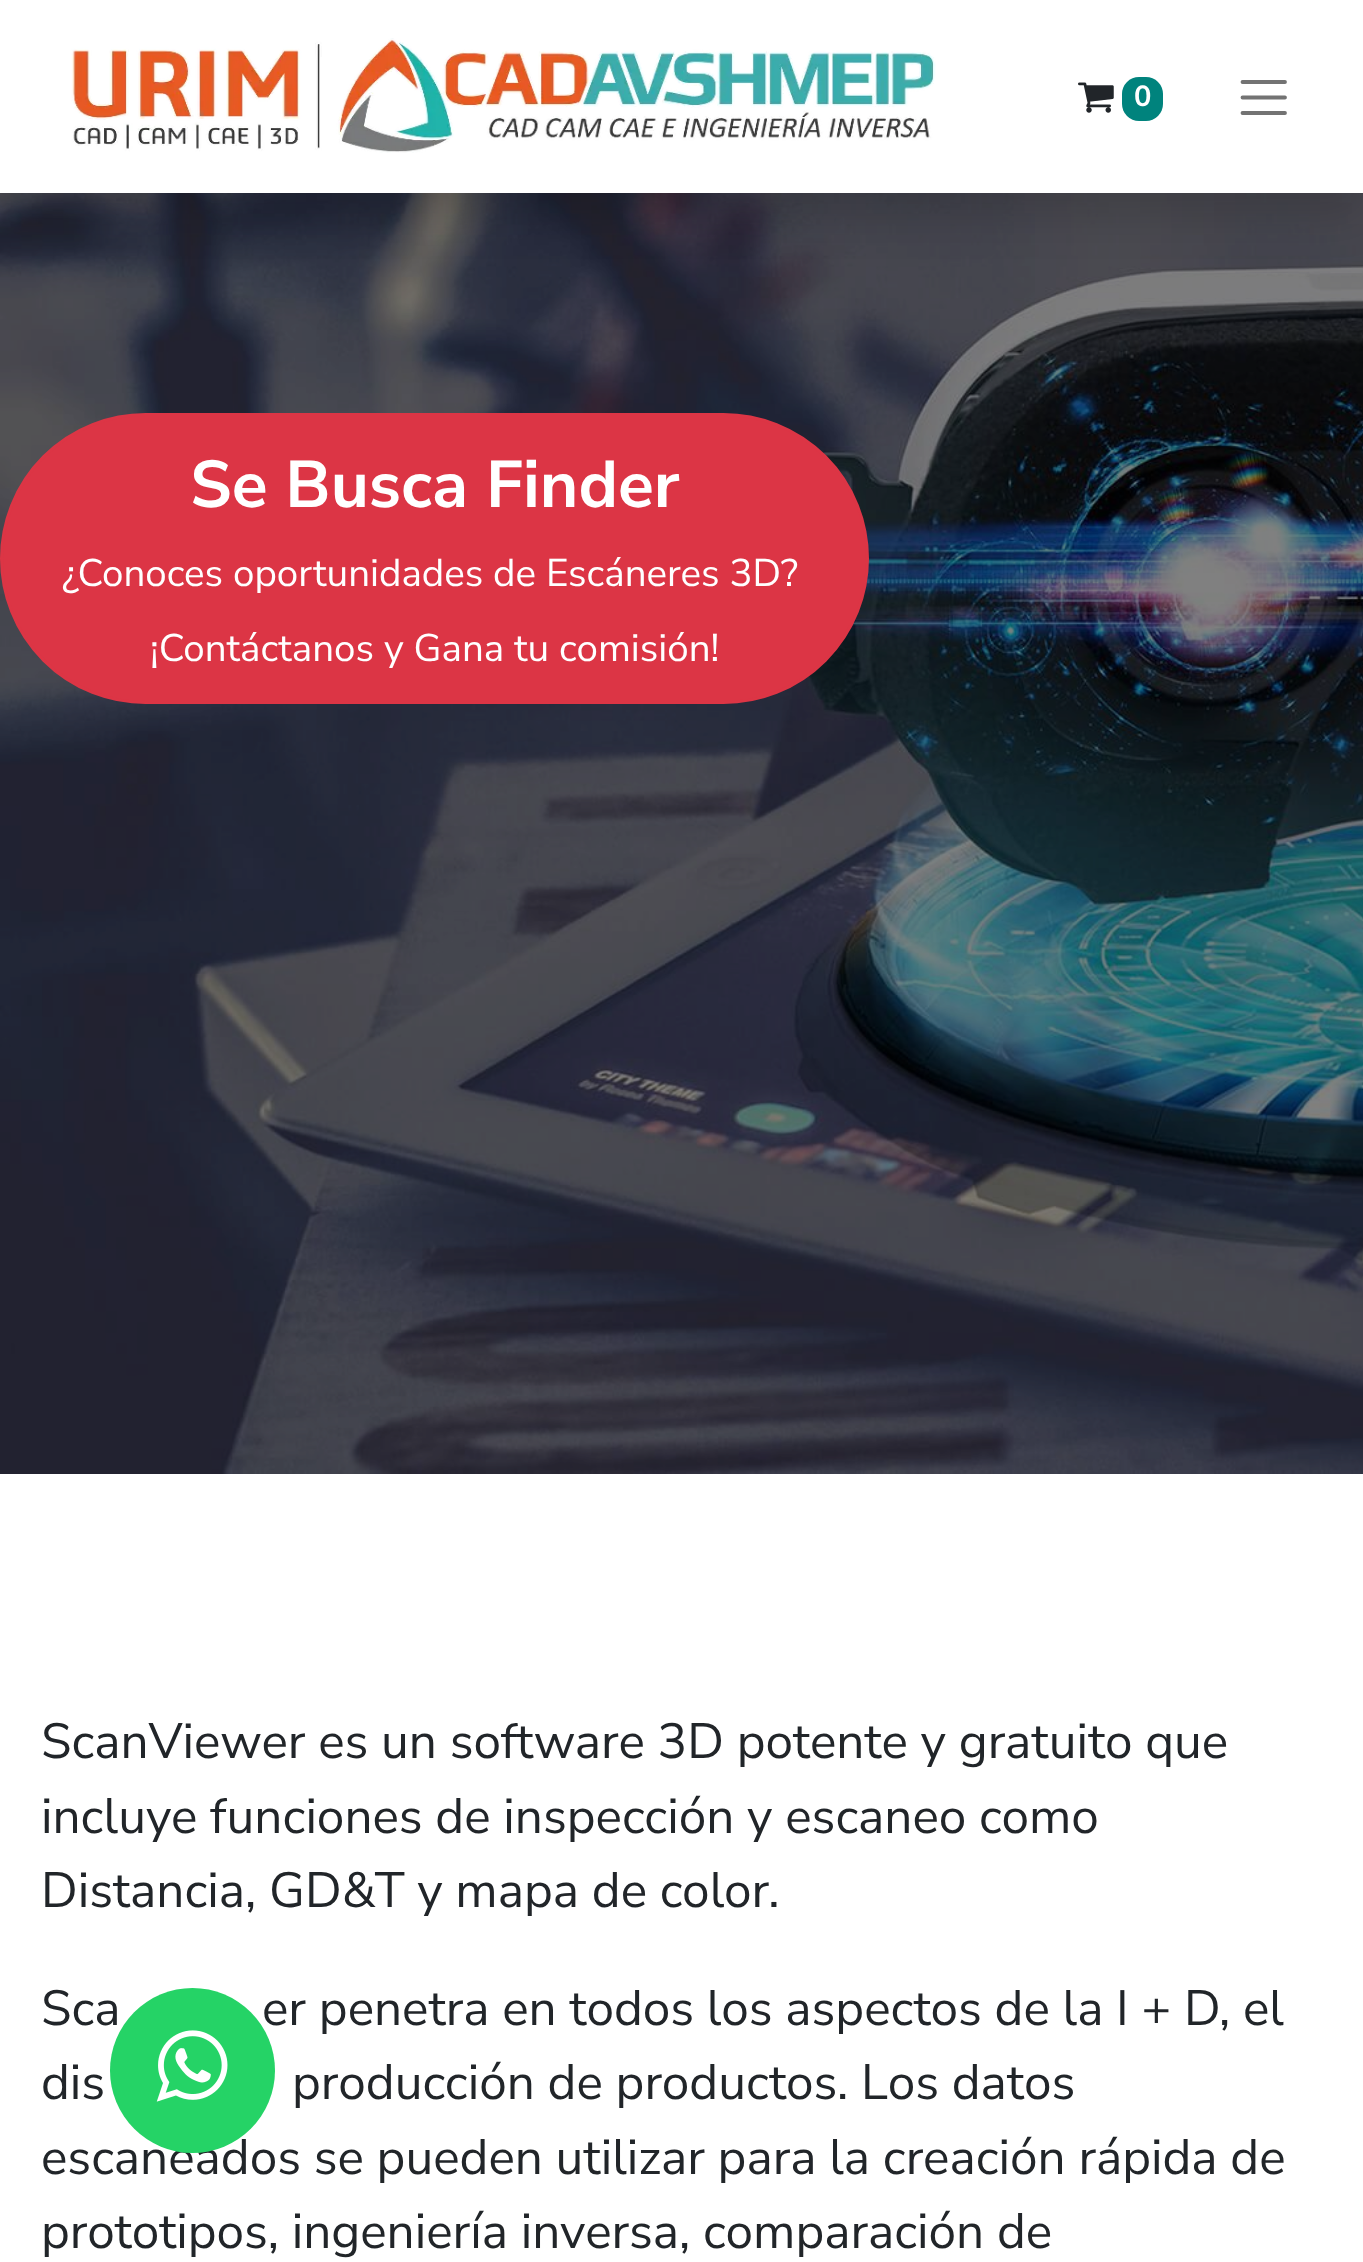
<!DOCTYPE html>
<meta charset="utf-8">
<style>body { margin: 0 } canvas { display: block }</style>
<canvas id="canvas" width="1363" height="2262"></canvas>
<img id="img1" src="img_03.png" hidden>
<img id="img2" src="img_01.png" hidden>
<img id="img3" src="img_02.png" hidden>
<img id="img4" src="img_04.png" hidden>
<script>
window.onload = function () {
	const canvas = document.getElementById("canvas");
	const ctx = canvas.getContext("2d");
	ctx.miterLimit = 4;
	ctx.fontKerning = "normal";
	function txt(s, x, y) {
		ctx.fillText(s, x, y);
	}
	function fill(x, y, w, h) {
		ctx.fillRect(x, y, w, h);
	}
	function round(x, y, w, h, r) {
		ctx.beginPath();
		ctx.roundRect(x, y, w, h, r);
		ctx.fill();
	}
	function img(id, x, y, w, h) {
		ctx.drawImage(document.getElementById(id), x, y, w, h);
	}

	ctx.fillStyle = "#FFFFFF";
	fill(0, 0, 1363, 2262);
	img("img1", 0, 193, 1363, 1281);
	ctx.fillStyle = "rgba(0, 0, 0, 0.15)";
	ctx.filter = "blur(22px)";
	ctx.beginPath();
	ctx.rect(0, 22, 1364, 193);
	ctx.fill();
	ctx.filter = "none";
	ctx.fillStyle = "#FFFFFF";
	fill(0, 0, 1363, 193);
	img("img2", 71, 38, 865, 115);
	img("img3", 1078, 82, 36, 31);
	ctx.fillStyle = "#00837D";
	round(1122, 77, 41, 44, 17);
	ctx.beginPath();
	ctx.moveTo(1242.5, 82);
	ctx.lineTo(1285, 82);
	ctx.moveTo(1242.5, 97.5);
	ctx.lineTo(1285, 97.5);
	ctx.moveTo(1242.5, 113);
	ctx.lineTo(1285, 113);
	ctx.strokeStyle = "#737373";
	ctx.lineWidth = 3.8;
	ctx.lineCap = "round";
	ctx.stroke();
	ctx.fillStyle = "#DC3545";
	ctx.beginPath();
	ctx.roundRect(1.5, 414.5, 866, 288, 144);
	ctx.fill();
	ctx.strokeStyle = "#DC3545";
	ctx.lineWidth = 3;
	ctx.stroke();
	ctx.font = "bold 29px Nunito Sans";
	ctx.fillStyle = "#FFFFFF";
	txt("0", 1134, 106);
	ctx.font = "bold 66px Nunito Sans";
	txt("Se Busca Finder", 190, 507);
	ctx.font = "38.5px Nunito Sans";
	txt("¿Conoces oportunidades de Escáneres 3D?", 62, 586);
	txt("¡Contáctanos y Gana tu comisión!", 150, 661);
	ctx.font = "49.5px Nunito Sans";
	ctx.fillStyle = "#212529";
	txt("ScanViewer es un software 3D potente y gratuito que", 41, 1758);
	txt("incluye funciones de inspección y escaneo como", 41, 1833);
	txt("Distancia, GD&T y mapa de color.", 41, 1907);
	txt("Sca", 41, 2025);
	txt("er penetra en todos los aspectos de la I + D, el", 262, 2025);
	txt("dis", 41, 2099);
	txt("producción de productos. Los datos", 292, 2099);
	txt("escaneados se pueden utilizar para la creación rápida de", 41, 2174);
	txt("prototipos, ingeniería inversa, comparación de", 41, 2248);
	ctx.fillStyle = "#25D366";
	ctx.beginPath();
	ctx.arc(192.5, 2070.5, 82.5, 0, Math.PI * 2);
	ctx.fill();
	img("img4", 156, 2030, 72, 72);
};
</script>
